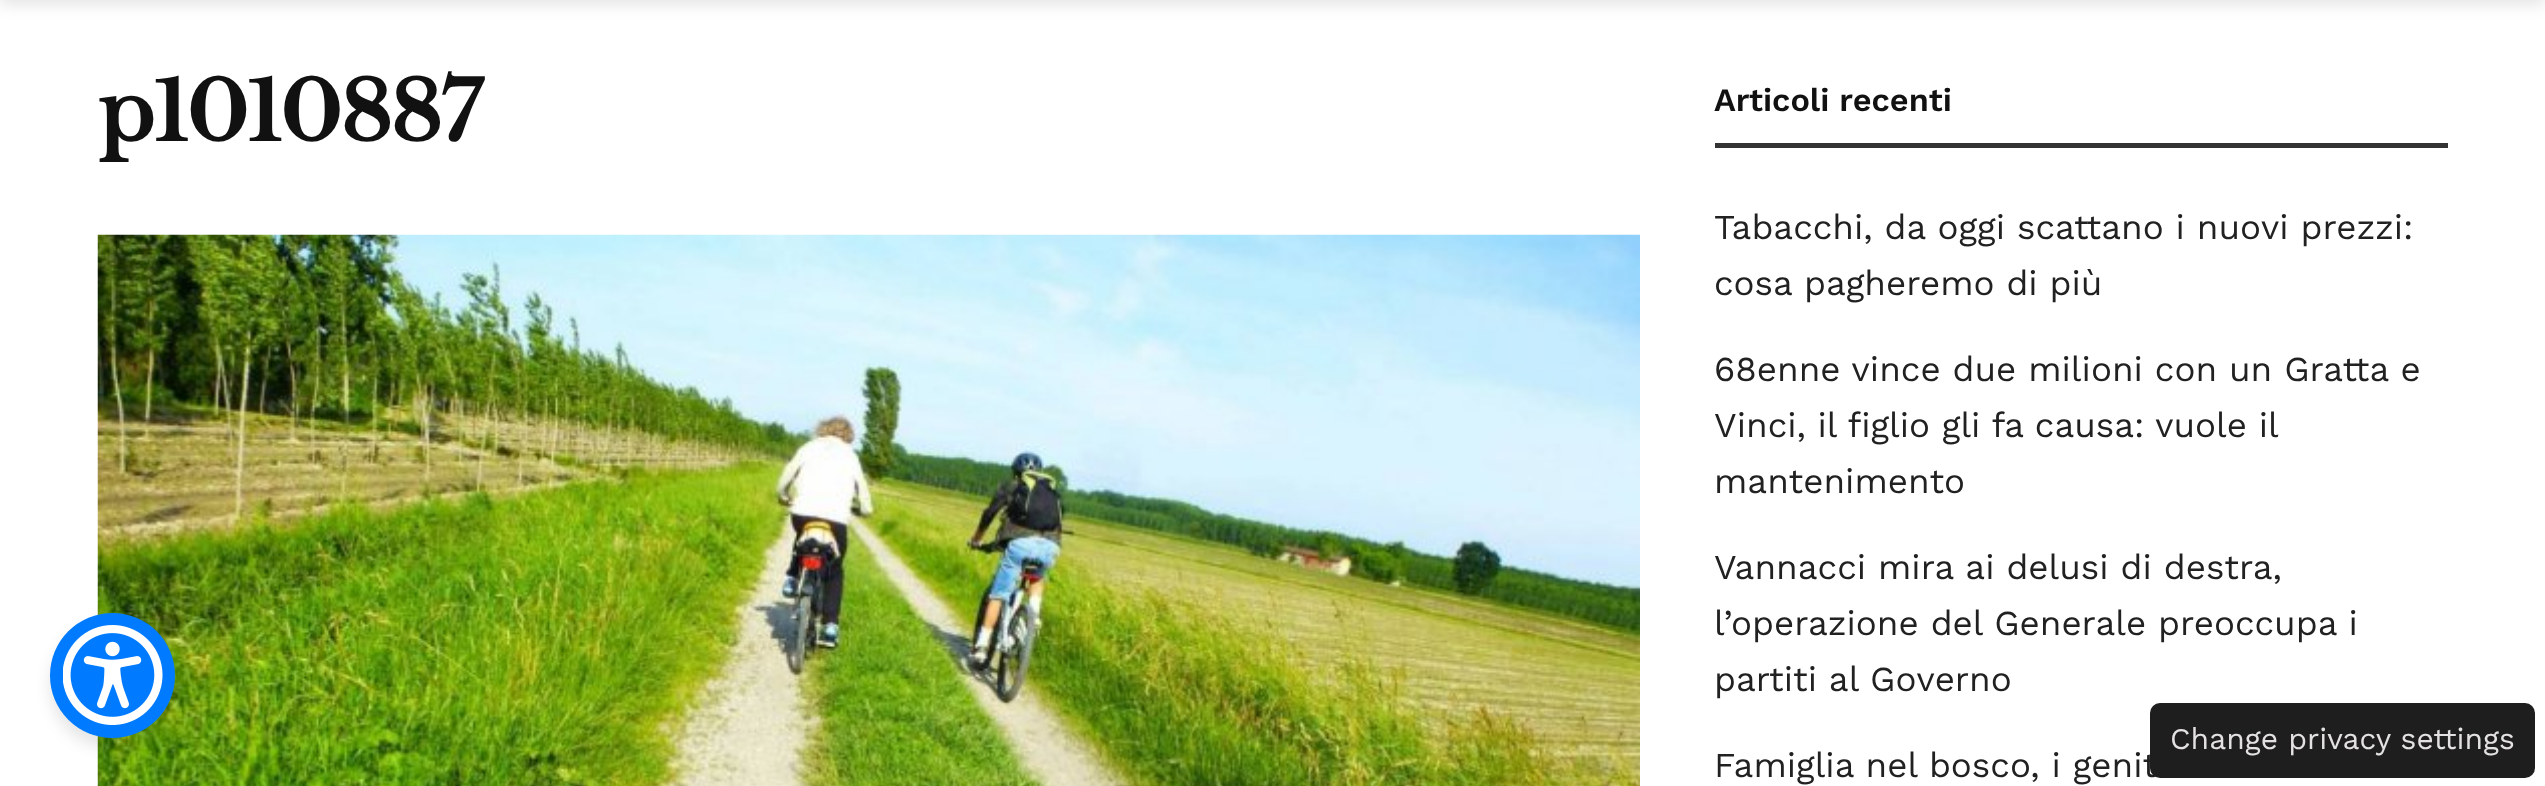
<!DOCTYPE html>
<meta charset="utf-8">
<style>body { margin: 0 } canvas { display: block }</style>
<canvas id="canvas" width="2545" height="786"></canvas>
<img id="img1" src="img_01.png" hidden>
<img id="img2" src="img_02.png" hidden>
<script>
window.onload = function () {
	const canvas = document.getElementById("canvas");
	const ctx = canvas.getContext("2d");
	ctx.miterLimit = 4;
	ctx.fontKerning = "normal";
	function txt(s, x, y) {
		ctx.fillText(s, x, y);
	}
	function fill(x, y, w, h) {
		ctx.fillRect(x, y, w, h);
	}
	function round(x, y, w, h, r) {
		ctx.beginPath();
		ctx.roundRect(x, y, w, h, r);
		ctx.fill();
	}
	function img(id, x, y, w, h) {
		ctx.drawImage(document.getElementById(id), x, y, w, h);
	}

	ctx.fillStyle = "#FFFFFF";
	fill(0, 0, 2545, 786);
	ctx.fillStyle = "rgba(0, 0, 0, 0.1)";
	ctx.filter = "blur(7.5px)";
	ctx.beginPath();
	ctx.rect(0, -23, 2545, 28);
	ctx.fill();
	ctx.filter = "none";
	img("img1", 97, 234, 1543, 552);
	ctx.fillStyle = "#333333";
	fill(1715, 143, 733, 5);
	ctx.fillStyle = "rgba(0, 0, 0, 0.1)";
	ctx.filter = "blur(7.5px)";
	ctx.beginPath();
	ctx.roundRect(50, 623, 125, 125, 62.5);
	ctx.fill();
	ctx.filter = "none";
	ctx.fillStyle = "#007BFF";
	ctx.beginPath();
	ctx.arc(112.5, 675.5, 62.5, 0, Math.PI * 2);
	ctx.fill();
	img("img2", 63, 625, 100, 100);
	ctx.letterSpacing = "-3.25px";
	ctx.font = "bold 84px Libre Baskerville";
	ctx.fillStyle = "#111111";
	txt("p1010887", 98, 141);
	ctx.letterSpacing = "0px";
	ctx.font = "600 32.5px Work Sans";
	txt("Articoli recenti", 1714, 111);
	ctx.font = "35px Work Sans";
	ctx.fillStyle = "#212121";
	txt("Tabacchi, da oggi scattano i nuovi prezzi:", 1714, 239);
	txt("cosa pagheremo di più", 1714, 295);
	txt("68enne vince due milioni con un Gratta e", 1714, 381);
	ctx.wordSpacing = "-0.25px";
	txt("Vinci, il figlio gli fa causa: vuole il", 1714, 437);
	ctx.wordSpacing = "0px";
	txt("mantenimento", 1714, 493);
	txt("Vannacci mira ai delusi di destra,", 1714, 579);
	txt("l’operazione del Generale preoccupa i", 1714, 635);
	txt("partiti al Governo", 1714, 691);
	txt("Famiglia nel bosco, i genit", 1714, 777);
	ctx.fillStyle = "#1E1E1E";
	round(2150, 703, 385, 75, 10);
	ctx.font = "30px Work Sans";
	ctx.fillStyle = "#E3E1E1";
	txt("Change privacy settings", 2170, 749);
};
</script>
